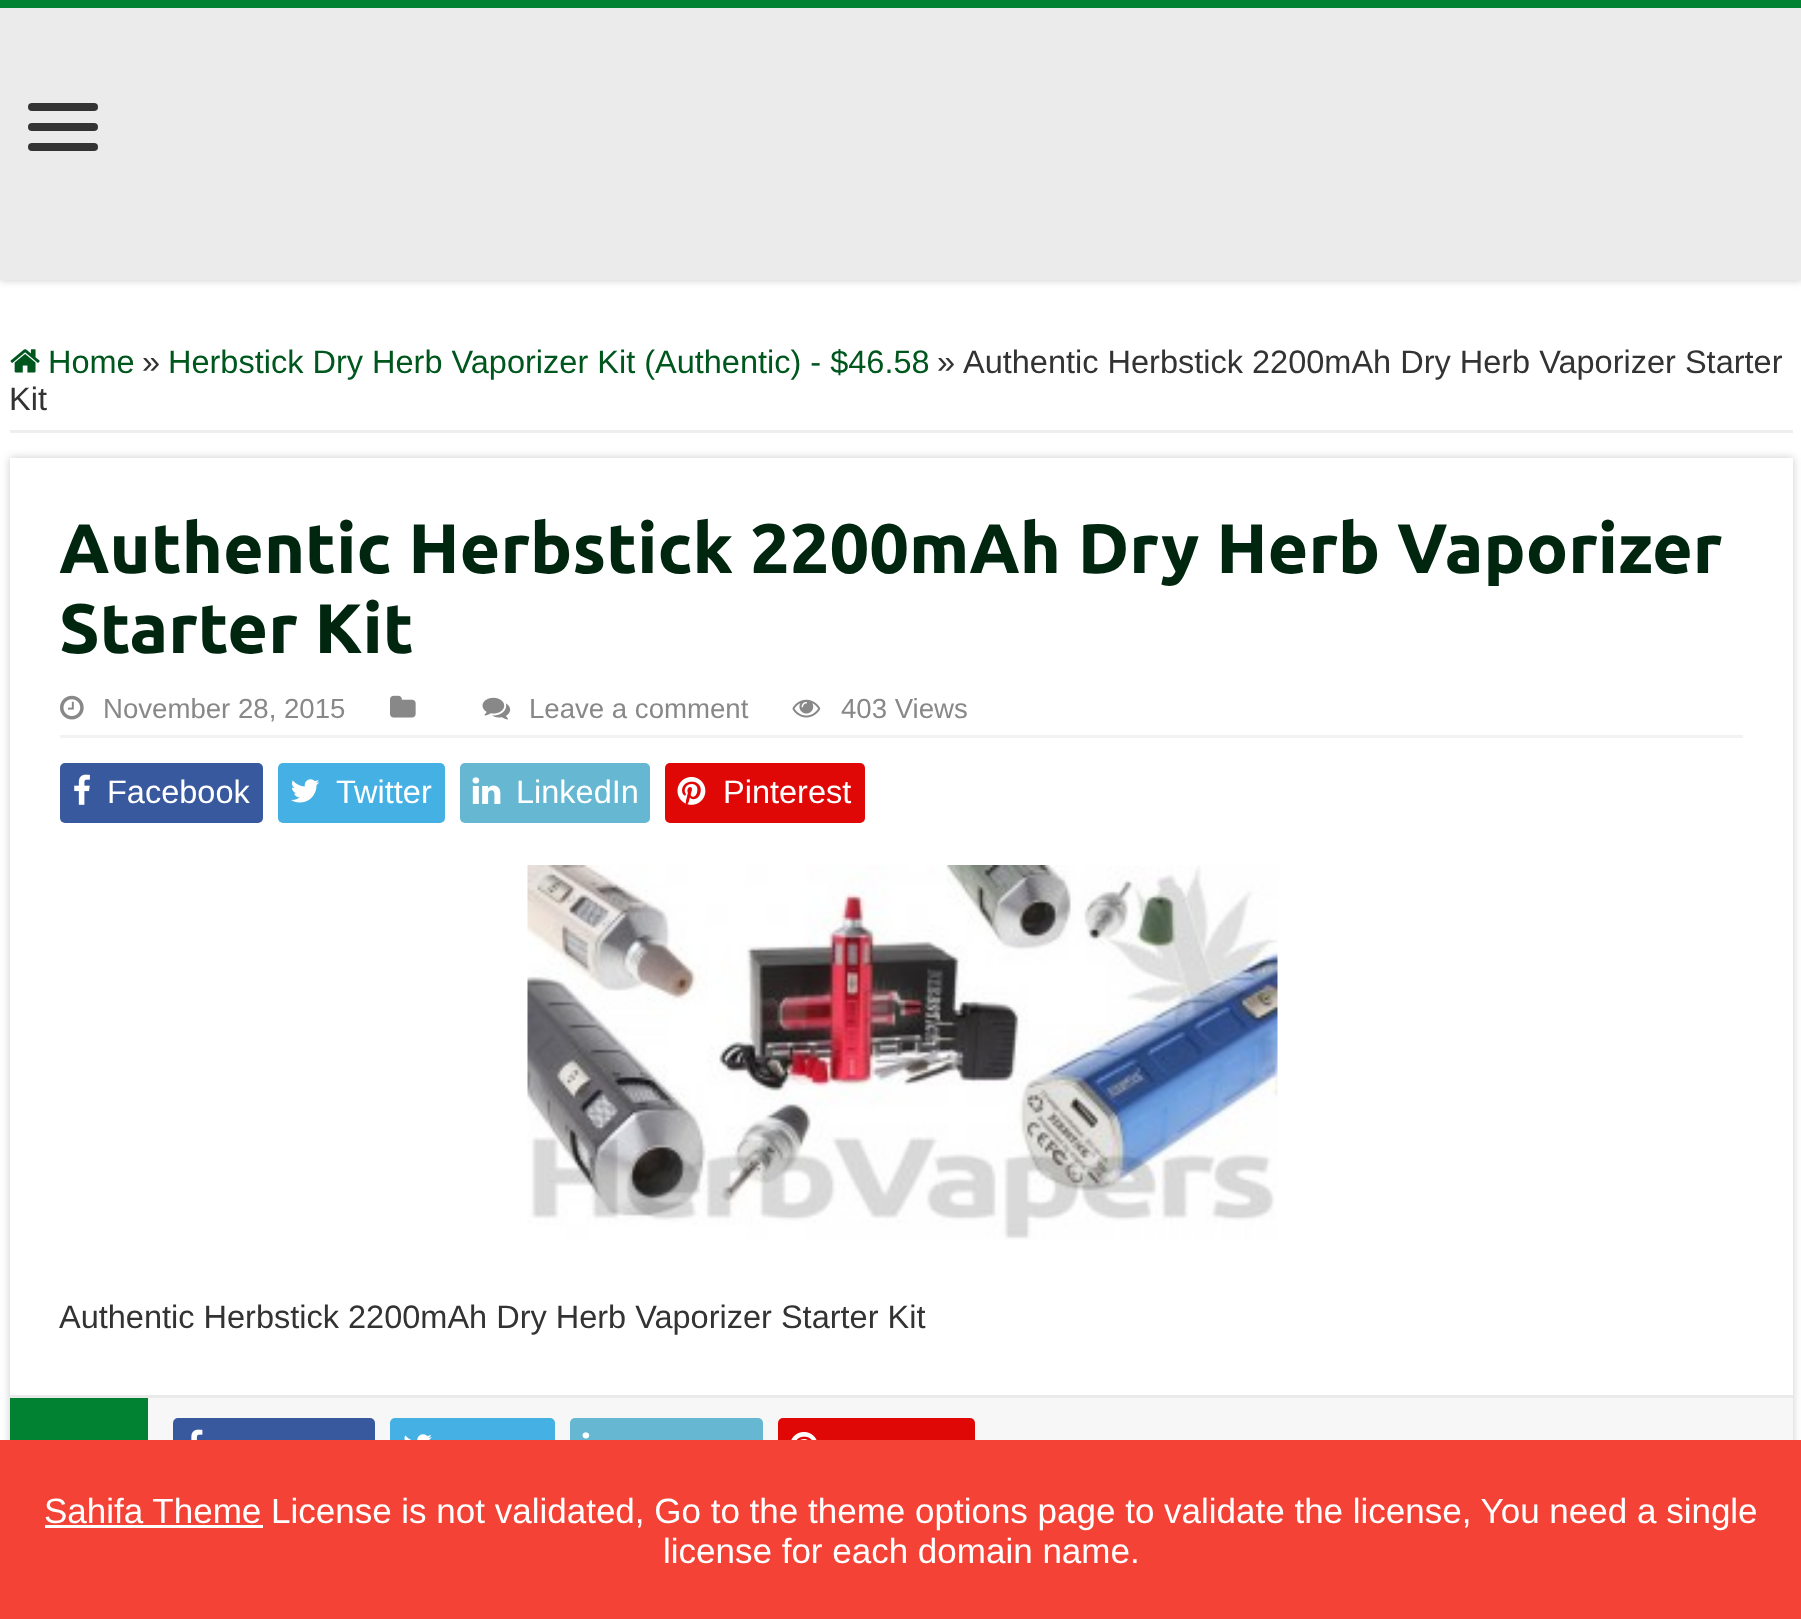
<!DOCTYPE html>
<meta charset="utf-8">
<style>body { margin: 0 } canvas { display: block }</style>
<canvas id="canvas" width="1801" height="1619"></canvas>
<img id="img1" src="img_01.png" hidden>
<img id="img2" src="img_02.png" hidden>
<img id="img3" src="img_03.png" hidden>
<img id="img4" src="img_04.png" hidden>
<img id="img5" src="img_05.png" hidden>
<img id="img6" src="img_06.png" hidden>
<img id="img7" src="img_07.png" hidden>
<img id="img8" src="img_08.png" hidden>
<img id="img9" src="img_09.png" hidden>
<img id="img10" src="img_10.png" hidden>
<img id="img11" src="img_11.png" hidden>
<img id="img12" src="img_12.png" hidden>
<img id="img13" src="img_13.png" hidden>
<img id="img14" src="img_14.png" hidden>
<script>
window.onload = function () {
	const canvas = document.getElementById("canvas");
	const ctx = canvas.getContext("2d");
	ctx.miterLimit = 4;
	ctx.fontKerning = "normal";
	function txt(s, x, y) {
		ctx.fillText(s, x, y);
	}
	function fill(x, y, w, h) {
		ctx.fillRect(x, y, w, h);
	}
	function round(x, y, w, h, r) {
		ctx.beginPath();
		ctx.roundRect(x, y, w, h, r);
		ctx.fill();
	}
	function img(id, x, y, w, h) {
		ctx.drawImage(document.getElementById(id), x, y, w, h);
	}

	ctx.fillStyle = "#FFFFFF";
	fill(0, 0, 1801, 1619);
	ctx.fillStyle = "#CACACA";
	ctx.filter = "blur(4px)";
	ctx.beginPath();
	ctx.rect(0, 0, 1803, 280);
	ctx.fill();
	ctx.filter = "none";
	ctx.fillStyle = "#EBEBEB";
	fill(0, 8, 1801, 272);
	ctx.fillStyle = "#008232";
	fill(0, 0, 1801, 8);
	ctx.fillStyle = "#333333";
	round(28, 103, 70, 8, 4);
	round(28, 123, 70, 8, 4);
	round(28, 143, 70, 8, 4);
	ctx.fillStyle = "#EEEEEE";
	fill(10, 430, 1783, 3);
	img("img1", 10, 349, 30, 24);
	ctx.fillStyle = "#CACACA";
	ctx.filter = "blur(4px)";
	ctx.beginPath();
	ctx.rect(10, 458, 1783, 1050);
	ctx.fill();
	ctx.filter = "none";
	ctx.fillStyle = "#FFFFFF";
	fill(10, 458, 1783, 937);
	ctx.fillStyle = "#F2F2F2";
	fill(60, 735, 1683, 3);
	img("img2", 60, 695, 24, 25);
	img("img3", 390, 695, 26, 23);
	img("img4", 482, 697, 29, 23);
	img("img5", 792, 699, 29, 19);
	ctx.fillStyle = "#39599F";
	round(60, 763, 203, 60, 5);
	img("img6", 74, 774, 16, 31);
	ctx.fillStyle = "#45B0E3";
	round(278, 763, 167, 60, 5);
	img("img7", 291, 779, 29, 24);
	ctx.fillStyle = "#65B7D2";
	round(460, 763, 190, 60, 5);
	img("img8", 472, 777, 29, 27);
	ctx.fillStyle = "#E00707";
	round(665, 763, 200, 60, 5);
	img("img9", 677, 777, 29, 28);
	img("img10", 527, 865, 751, 375);
	ctx.fillStyle = "#F7F7F7";
	fill(148, 1398, 1645, 42);
	ctx.fillStyle = "#EAEAEA";
	fill(10, 1395, 1783, 3);
	ctx.fillStyle = "#008232";
	fill(10, 1398, 138, 42);
	ctx.fillStyle = "#39599F";
	round(173, 1418, 202, 60, 5);
	img("img11", 191, 1429, 12, 11);
	ctx.fillStyle = "#45B0E3";
	round(390, 1418, 165, 60, 5);
	img("img12", 404, 1434, 28, 6);
	ctx.fillStyle = "#65B7D2";
	round(570, 1418, 193, 60, 5);
	img("img13", 582, 1432, 8, 7);
	ctx.fillStyle = "#E00707";
	round(778, 1418, 197, 60, 5);
	img("img14", 791, 1432, 26, 8);
	ctx.fillStyle = "#F44336";
	fill(0, 1440, 1801, 179);
	ctx.fillStyle = "#FFFFFF";
	fill(45, 1525, 218, 3);
	ctx.font = "32.5px Liberation Sans";
	ctx.fillStyle = "#00571E";
	txt("Home", 48, 373);
	ctx.fillStyle = "#333333";
	txt("»", 142, 373);
	ctx.fillStyle = "#00571E";
	txt("Herbstick Dry Herb Vaporizer Kit (Authentic) - $46.58", 168, 373);
	ctx.fillStyle = "#333333";
	txt("»", 937, 373);
	txt("Authentic Herbstick 2200mAh Dry Herb Vaporizer Starter", 963, 373);
	txt("Kit", 9, 410);
	ctx.font = "bold 70px Ubuntu";
	ctx.fillStyle = "#00260F";
	txt("Authentic Herbstick 2200mAh Dry Herb Vaporizer", 59, 573);
	txt("Starter Kit", 59, 653);
	ctx.font = "27.6px Liberation Sans";
	ctx.fillStyle = "#888888";
	txt("November 28, 2015", 103, 718);
	txt("Leave a comment", 529, 718);
	txt("403 Views", 841, 718);
	ctx.font = "32.5px Liberation Sans";
	ctx.fillStyle = "#FFFFFF";
	txt("Facebook", 107, 803);
	txt("Twitter", 336, 803);
	txt("LinkedIn", 516, 803);
	txt("Pinterest", 723, 803);
	ctx.fillStyle = "#333333";
	txt("Authentic Herbstick 2200mAh Dry Herb Vaporizer Starter Kit", 59, 1328);
	ctx.font = "35px Liberation Sans";
	ctx.fillStyle = "#FFFFFF";
	txt("Sahifa Theme License is not validated, Go to the theme options page to validate the license, You need a single", 44, 1523);
	txt("license for each domain name.", 663, 1563);
};
</script>
